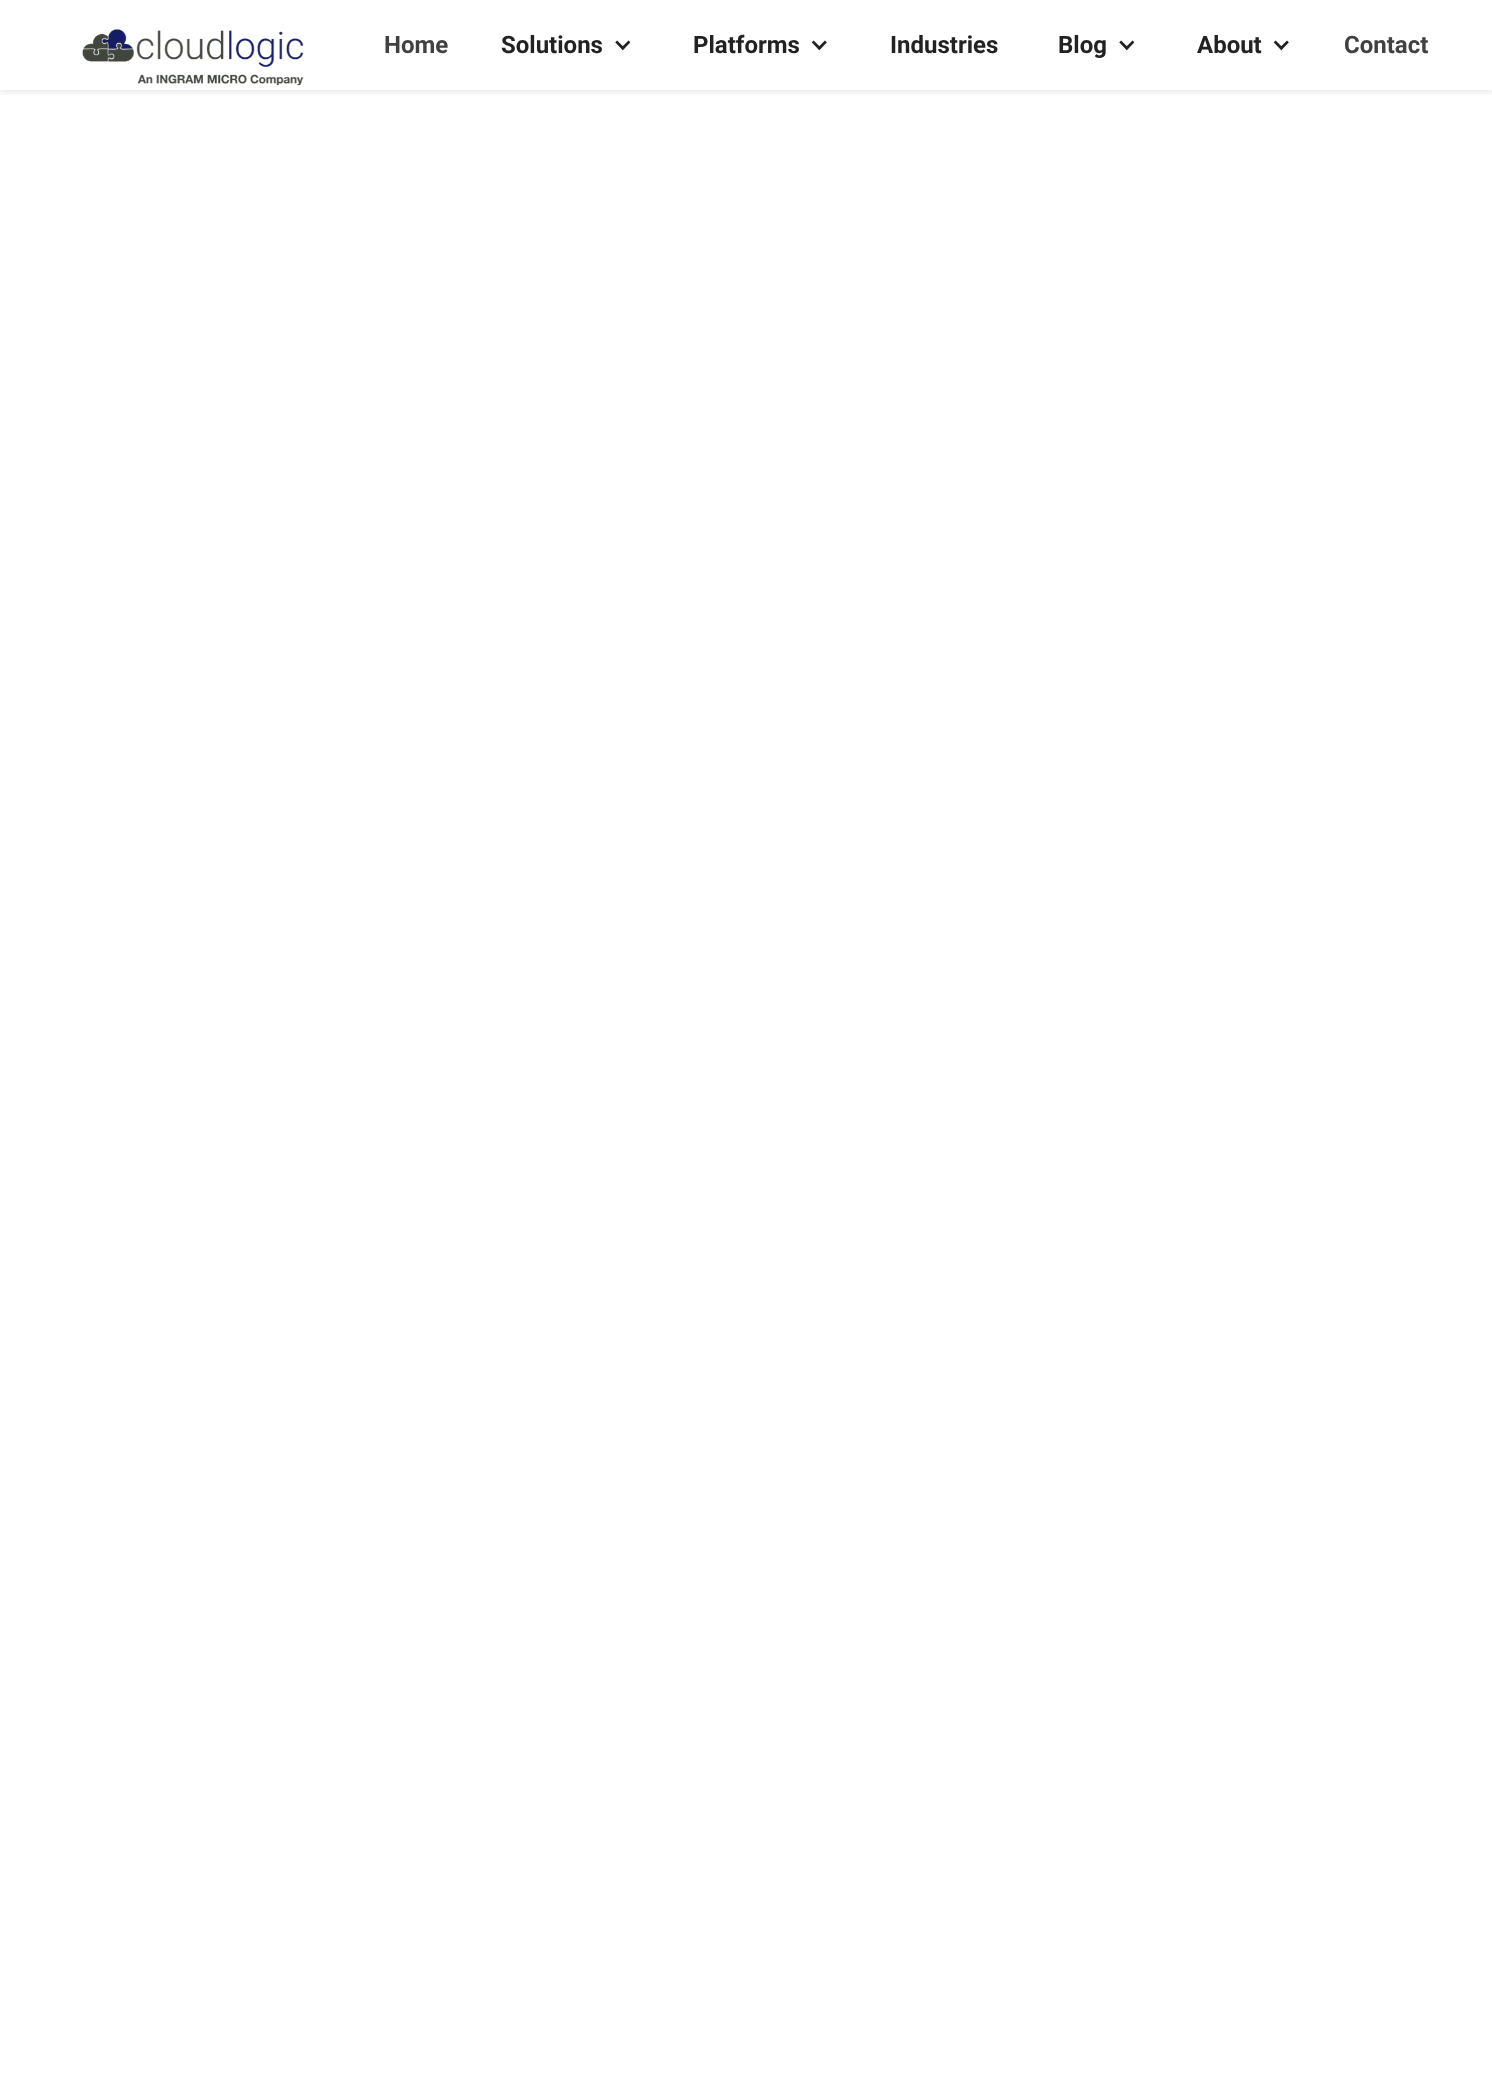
<!DOCTYPE html>
<meta charset="utf-8">
<style>body { margin: 0 } canvas { display: block }</style>
<canvas id="canvas" width="1492" height="2085"></canvas>
<img id="img1" src="img_01.png" hidden>
<img id="img2" src="img_02.png" hidden>
<img id="img3" src="img_03.png" hidden>
<script>
window.onload = function () {
	const canvas = document.getElementById("canvas");
	const ctx = canvas.getContext("2d");
	ctx.miterLimit = 4;
	ctx.fontKerning = "normal";
	function txt(s, x, y) {
		ctx.fillText(s, x, y);
	}
	function fill(x, y, w, h) {
		ctx.fillRect(x, y, w, h);
	}
	function img(id, x, y, w, h) {
		ctx.drawImage(document.getElementById(id), x, y, w, h);
	}

	ctx.fillStyle = "#FFFFFF";
	fill(0, 0, 1492, 2085);
	ctx.save();
	ctx.beginPath();
	ctx.rect(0, 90, 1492, 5);
	ctx.clip();
	ctx.fillStyle = "rgba(0, 0, 0, 0.1)";
	ctx.filter = "blur(3px)";
	ctx.beginPath();
	ctx.rect(0, 2, 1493, 90);
	ctx.fill();
	ctx.filter = "none";
	ctx.restore();
	img("img1", 82, 29, 222, 57);
	img("img2", 615, 40, 16, 11);
	img("img3", 811, 40, 16, 11);
	img("img2", 1119, 40, 16, 11);
	img("img3", 1273, 40, 16, 11);
	ctx.font = "bold 24px Roboto";
	ctx.fillStyle = "#414141";
	txt("Home", 384, 53);
	ctx.fillStyle = "#222222";
	txt("Solutions", 501, 53);
	txt("Platforms", 693, 53);
	txt("Industries", 890, 53);
	txt("Blog", 1058, 53);
	txt("About", 1197, 53);
	ctx.fillStyle = "#414141";
	txt("Contact", 1344, 53);
};
</script>
